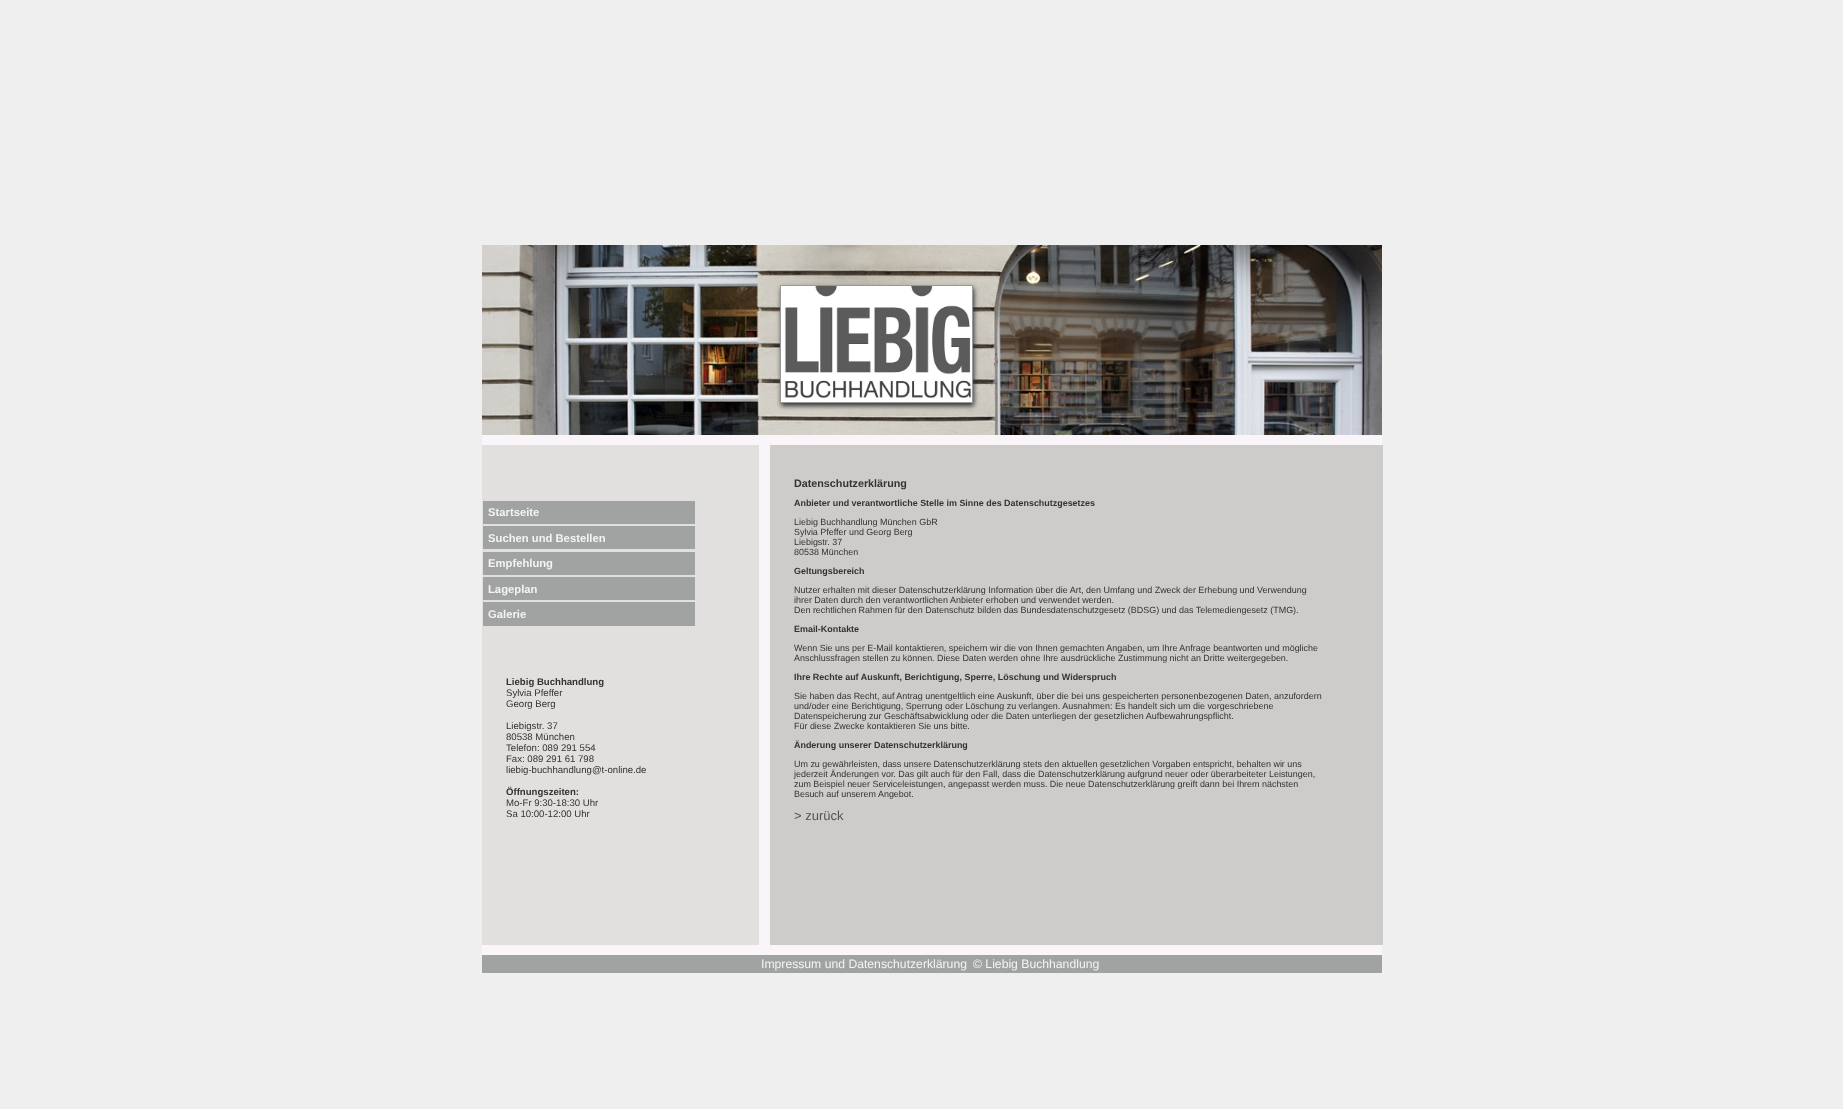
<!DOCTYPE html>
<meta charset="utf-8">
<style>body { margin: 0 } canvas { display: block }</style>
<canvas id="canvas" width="1843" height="1109"></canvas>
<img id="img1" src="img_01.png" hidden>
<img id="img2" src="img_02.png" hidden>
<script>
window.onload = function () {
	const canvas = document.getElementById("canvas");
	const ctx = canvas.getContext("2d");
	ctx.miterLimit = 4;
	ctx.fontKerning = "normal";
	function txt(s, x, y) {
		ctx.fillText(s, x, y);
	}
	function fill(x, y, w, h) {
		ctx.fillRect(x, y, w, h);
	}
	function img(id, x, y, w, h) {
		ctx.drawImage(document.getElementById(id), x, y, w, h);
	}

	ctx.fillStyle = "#EFEFEF";
	fill(0, 0, 1843, 1109);
	ctx.fillStyle = "#F9F5F9";
	fill(482, 435, 900, 520);
	img("img1", 482, 245, 900, 190);
	ctx.fillStyle = "#333333";
	ctx.filter = "blur(2.5px)";
	ctx.beginPath();
	ctx.rect(781, 288, 193, 118);
	ctx.fill();
	ctx.filter = "none";
	ctx.strokeStyle = "#999999";
	ctx.strokeRect(780.5, 285.5, 192, 117);
	img("img2", 781, 286, 191, 116);
	ctx.fillStyle = "#E2E0DE";
	fill(482, 445, 277, 500);
	ctx.fillStyle = "#A1A3A3";
	fill(483, 501, 212, 23);
	fill(483, 526, 212, 23);
	fill(483, 552, 212, 23);
	fill(483, 577, 212, 23);
	fill(483, 602, 212, 24);
	ctx.fillStyle = "#CECCCA";
	fill(770, 445, 613, 500);
	ctx.fillStyle = "#A1A3A3";
	fill(482, 955, 900, 18);
	ctx.font = "bold 11.25px Liberation Sans";
	ctx.fillStyle = "#F4F4F4";
	txt("Startseite", 488, 516);
	txt("Suchen und Bestellen", 488, 542);
	txt("Empfehlung", 488, 567);
	txt("Lageplan", 488, 593);
	txt("Galerie", 488, 618);
	ctx.font = "bold 9.6px Liberation Sans";
	ctx.fillStyle = "#333333";
	txt("Liebig Buchhandlung", 506, 685);
	ctx.font = "9.6px Liberation Sans";
	txt("Sylvia Pfeffer", 506, 696);
	txt("Georg Berg", 506, 707);
	txt("Liebigstr. 37", 506, 729);
	txt("80538 München", 506, 740);
	txt("Telefon: 089 291 554", 506, 751);
	txt("Fax: 089 291 61 798", 506, 762);
	txt("liebig-buchhandlung@t-online.de", 506, 773);
	ctx.font = "bold 9.6px Liberation Sans";
	txt("Öffnungszeiten:", 506, 795);
	ctx.font = "9.6px Liberation Sans";
	txt("Mo-Fr 9:30-18:30 Uhr", 506, 806);
	txt("Sa 10:00-12:00 Uhr", 506, 817);
	ctx.font = "bold 10.75px Liberation Sans";
	txt("Datenschutzerklärung", 794, 487);
	ctx.font = "bold 8.95px Liberation Sans";
	txt("Anbieter und verantwortliche Stelle im Sinne des Datenschutzgesetzes", 794, 506);
	ctx.font = "8.95px Liberation Sans";
	txt("Liebig Buchhandlung München GbR", 794, 525);
	txt("Sylvia Pfeffer und Georg Berg", 794, 535);
	txt("Liebigstr. 37", 794, 545);
	txt("80538 München", 794, 555);
	ctx.font = "bold 8.95px Liberation Sans";
	txt("Geltungsbereich", 794, 574);
	ctx.font = "8.95px Liberation Sans";
	txt("Nutzer erhalten mit dieser Datenschutzerklärung Information über die Art, den Umfang und Zweck der Erhebung und Verwendung", 794, 593);
	txt("ihrer Daten durch den verantwortlichen Anbieter erhoben und verwendet werden.", 794, 603);
	txt("Den rechtlichen Rahmen für den Datenschutz bilden das Bundesdatenschutzgesetz (BDSG) und das Telemediengesetz (TMG).", 794, 613);
	ctx.font = "bold 8.95px Liberation Sans";
	txt("Email-Kontakte", 794, 632);
	ctx.font = "8.95px Liberation Sans";
	txt("Wenn Sie uns per E-Mail kontaktieren, speichern wir die von Ihnen gemachten Angaben, um Ihre Anfrage beantworten und mögliche", 794, 651);
	txt("Anschlussfragen stellen zu können. Diese Daten werden ohne Ihre ausdrückliche Zustimmung nicht an Dritte weitergegeben.", 794, 661);
	ctx.font = "bold 8.95px Liberation Sans";
	txt("Ihre Rechte auf Auskunft, Berichtigung, Sperre, Löschung und Widerspruch", 794, 680);
	ctx.font = "8.95px Liberation Sans";
	txt("Sie haben das Recht, auf Antrag unentgeltlich eine Auskunft, über die bei uns gespeicherten personenbezogenen Daten, anzufordern", 794, 699);
	txt("und/oder eine Berichtigung, Sperrung oder Löschung zu verlangen. Ausnahmen: Es handelt sich um die vorgeschriebene", 794, 709);
	txt("Datenspeicherung zur Geschäftsabwicklung oder die Daten unterliegen der gesetzlichen Aufbewahrungspflicht.", 794, 719);
	txt("Für diese Zwecke kontaktieren Sie uns bitte.", 794, 729);
	ctx.font = "bold 8.95px Liberation Sans";
	txt("Änderung unserer Datenschutzerklärung", 794, 748);
	ctx.font = "8.95px Liberation Sans";
	txt("Um zu gewährleisten, dass unsere Datenschutzerklärung stets den aktuellen gesetzlichen Vorgaben entspricht, behalten wir uns", 794, 767);
	txt("jederzeit Änderungen vor. Das gilt auch für den Fall, dass die Datenschutzerklärung aufgrund neuer oder überarbeiteter Leistungen,", 794, 777);
	txt("zum Beispiel neuer Serviceleistungen, angepasst werden muss. Die neue Datenschutzerklärung greift dann bei Ihrem nächsten", 794, 787);
	txt("Besuch auf unserem Angebot.", 794, 797);
	ctx.font = "13px Liberation Sans";
	ctx.fillStyle = "#525252";
	txt("> zurück", 794, 820);
	ctx.font = "12.2px Liberation Sans";
	ctx.fillStyle = "#F4F4F4";
	txt("Impressum und Datenschutzerklärung", 761, 968);
	txt("© Liebig Buchhandlung", 973, 968);
};
</script>
